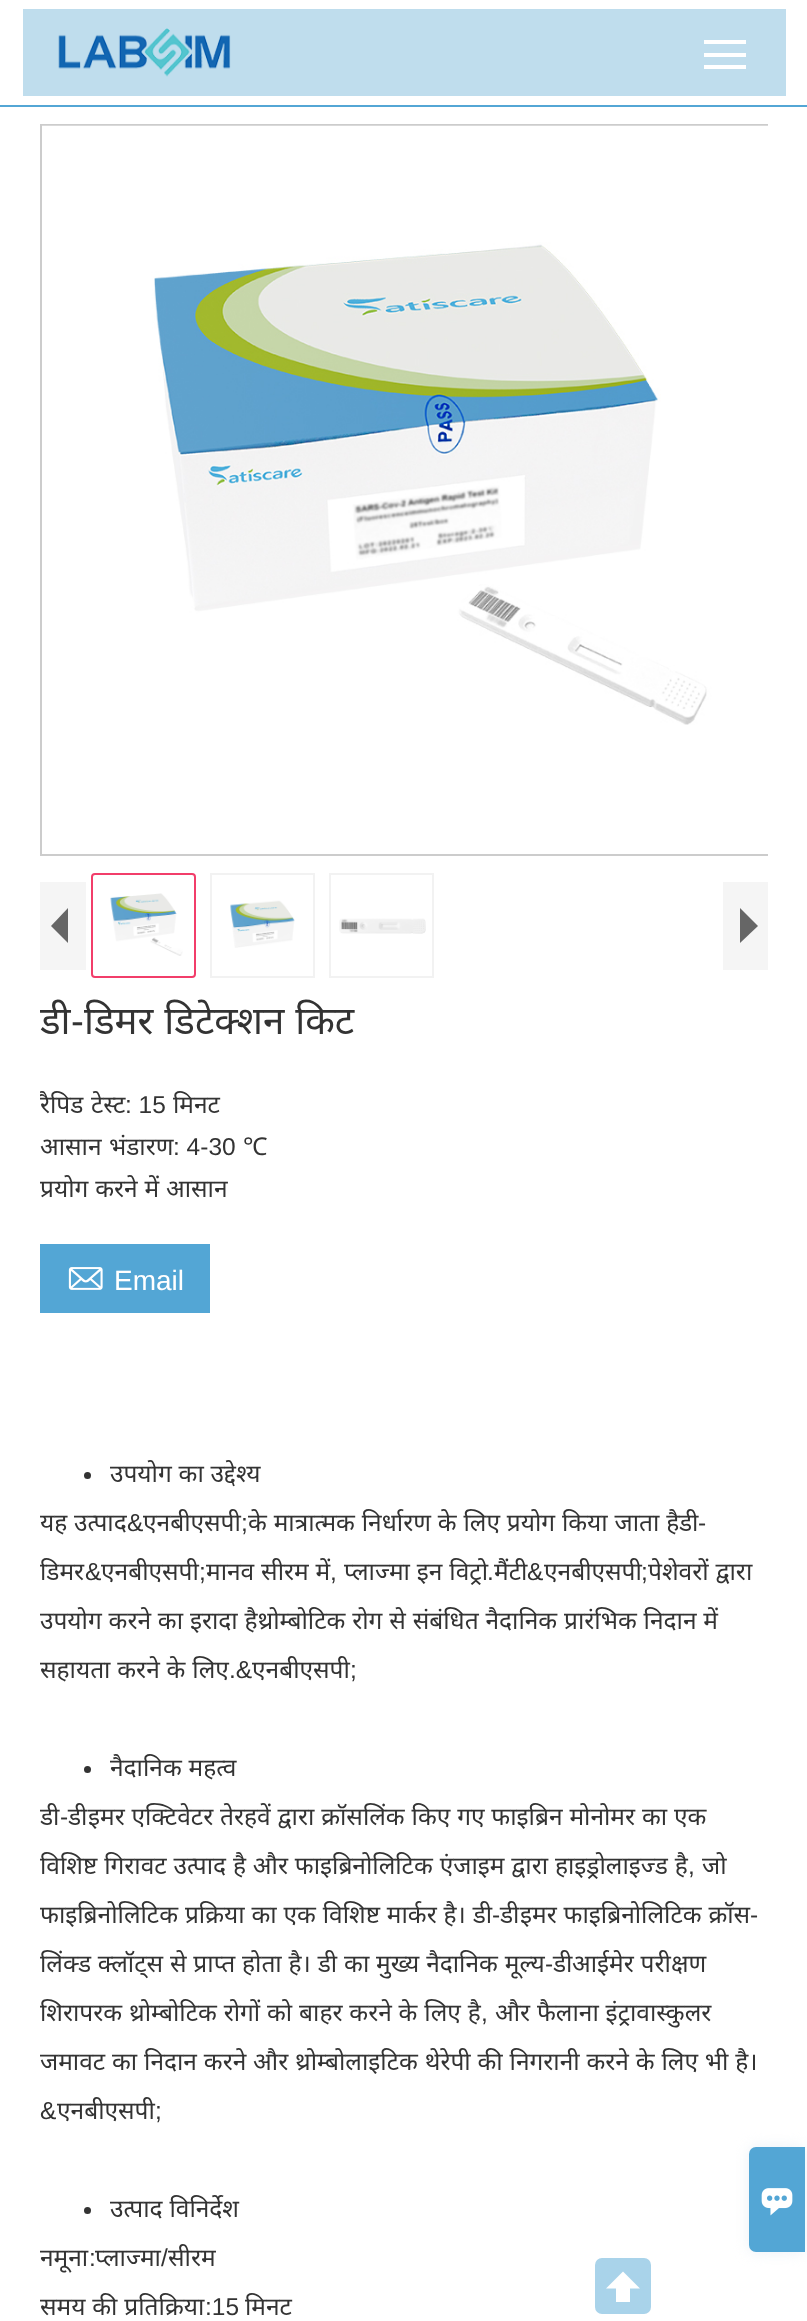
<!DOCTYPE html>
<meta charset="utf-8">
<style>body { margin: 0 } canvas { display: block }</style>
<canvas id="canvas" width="807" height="2321"></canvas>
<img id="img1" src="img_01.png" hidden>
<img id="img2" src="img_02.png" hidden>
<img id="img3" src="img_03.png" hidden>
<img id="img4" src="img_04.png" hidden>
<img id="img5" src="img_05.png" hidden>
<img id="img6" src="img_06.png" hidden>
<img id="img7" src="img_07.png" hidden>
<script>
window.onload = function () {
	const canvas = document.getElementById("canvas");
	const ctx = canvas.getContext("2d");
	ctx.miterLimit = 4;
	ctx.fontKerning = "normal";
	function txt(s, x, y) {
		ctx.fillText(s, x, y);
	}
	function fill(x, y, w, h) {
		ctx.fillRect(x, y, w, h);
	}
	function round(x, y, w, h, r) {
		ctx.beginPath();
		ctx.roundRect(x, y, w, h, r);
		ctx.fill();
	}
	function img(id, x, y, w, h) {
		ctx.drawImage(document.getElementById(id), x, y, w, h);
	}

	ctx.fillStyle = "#FFFFFF";
	fill(0, 0, 807, 2321);
	ctx.fillStyle = "#53A6D5";
	fill(0, 105, 807, 2);
	ctx.fillStyle = "#BFDDED";
	fill(23, 9, 763, 87);
	img("img1", 58, 28, 173, 49);
	ctx.fillStyle = "#FFFFFF";
	fill(704, 53, 42, 4);
	fill(704, 40, 42, 4);
	fill(704, 65, 42, 4);
	ctx.save();
	ctx.beginPath();
	ctx.rect(40, 124, 728, 1224);
	ctx.clip();
	ctx.strokeStyle = "#CCCCCC";
	ctx.lineWidth = 2;
	ctx.strokeRect(41, 125, 730, 730);
	ctx.restore();
	img("img2", 42, 125, 726, 600);
	ctx.fillStyle = "#F5F5F5";
	fill(40, 882, 46, 88);
	ctx.fillStyle = "#666666";
	ctx.beginPath();
	ctx.moveTo(68, 908);
	ctx.lineTo(68, 943);
	ctx.lineTo(51, 926);
	ctx.closePath();
	ctx.fill();
	ctx.beginPath();
	ctx.roundRect(92, 874, 103, 103, 3);
	ctx.strokeStyle = "#F23D6A";
	ctx.lineWidth = 2;
	ctx.stroke();
	img("img3", 110, 893, 73, 63);
	ctx.strokeStyle = "#F2F2F2";
	ctx.strokeRect(211, 874, 103, 103);
	img("img4", 230, 900, 65, 48);
	ctx.strokeRect(330, 874, 103, 103);
	img("img5", 339, 918, 87, 16);
	ctx.fillStyle = "#F5F5F5";
	fill(723, 882, 45, 88);
	ctx.fillStyle = "#666666";
	ctx.beginPath();
	ctx.moveTo(740, 943);
	ctx.lineTo(740, 908);
	ctx.lineTo(758, 926);
	ctx.closePath();
	ctx.fill();
	ctx.fillStyle = "#53A6D5";
	fill(40, 1244, 170, 69);
	img("img6", 68, 1267, 35, 23);
	ctx.fillStyle = "#333333";
	ctx.beginPath();
	ctx.arc(87.5, 1475.5, 3.5, 0, Math.PI * 2);
	ctx.fill();
	ctx.beginPath();
	ctx.arc(87.5, 1769.5, 3.5, 0, Math.PI * 2);
	ctx.fill();
	ctx.beginPath();
	ctx.arc(87.5, 2210.5, 3.5, 0, Math.PI * 2);
	ctx.fill();
	ctx.fillStyle = "#EAF0F6";
	ctx.filter = "blur(7px)";
	ctx.beginPath();
	ctx.roundRect(749, 2147, 56, 105, 7);
	ctx.fill();
	ctx.filter = "none";
	ctx.fillStyle = "#53A6D5";
	ctx.beginPath();
	ctx.roundRect(749, 2147, 56, 105, [7, 0, 0, 7]);
	ctx.fill();
	img("img7", 761, 2188, 32, 28);
	ctx.fillStyle = "#A9D3EA";
	round(595, 2258, 56, 56, 7);
	ctx.fillStyle = "#FFFFFF";
	ctx.beginPath();
	ctx.moveTo(640, 2288.5);
	ctx.lineTo(623, 2271.5);
	ctx.lineTo(606, 2288.5);
	ctx.lineTo(616, 2288.5);
	ctx.lineTo(616, 2302);
	ctx.lineTo(630, 2302);
	ctx.lineTo(630, 2288.5);
	ctx.closePath();
	ctx.fill();
	ctx.save();
	ctx.beginPath();
	ctx.rect(40, 124, 728, 1224);
	ctx.clip();
	ctx.font = "38.5px Noto Sans";
	ctx.fillStyle = "#333333";
	txt("डी", 40, 1034);
	ctx.restore();
	ctx.font = "38.5px Liberation Sans";
	ctx.fillStyle = "#333333";
	txt("-", 71, 1034);
	ctx.wordSpacing = "1px";
	ctx.font = "38.5px Noto Sans";
	txt("डिमर डिटेक्शन किट", 84, 1034);
	ctx.save();
	ctx.beginPath();
	ctx.rect(40, 124, 728, 1224);
	ctx.clip();
	ctx.wordSpacing = "0px";
	ctx.font = "24.5px Noto Sans";
	txt("रैपिड", 40, 1113);
	ctx.restore();
	ctx.wordSpacing = "0px";
	ctx.font = "24.5px Noto Sans";
	txt("टेस्ट", 91, 1113);
	ctx.font = "24.5px Liberation Sans";
	txt(": 15", 125, 1113);
	ctx.font = "24.5px Noto Sans";
	txt("मिनट", 173, 1113);
	txt("आसान", 40, 1155);
	txt("भंडारण", 109, 1155);
	ctx.font = "24.5px Liberation Sans";
	txt(": 4-30", 173, 1155);
	ctx.font = "24.5px Noto Sans";
	txt("℃", 243, 1155);
	ctx.wordSpacing = "0.5px";
	txt("प्रयोग करने में आसान", 40, 1197);
	ctx.wordSpacing = "0px";
	ctx.font = "28px Liberation Sans";
	ctx.fillStyle = "#FFFFFF";
	txt("Email", 114, 1290);
	ctx.wordSpacing = "0.5px";
	ctx.font = "24.5px Noto Sans";
	ctx.fillStyle = "#333333";
	txt("उपयोग का उद्देश्य", 110, 1482);
	txt("यह उत्पाद", 40, 1531);
	ctx.wordSpacing = "0px";
	ctx.font = "24.5px Liberation Sans";
	txt("&", 127, 1531);
	ctx.font = "24.5px Noto Sans";
	txt("एनबीएसपी", 143, 1531);
	ctx.font = "24.5px Liberation Sans";
	txt(";", 241, 1531);
	ctx.wordSpacing = "0.5px";
	ctx.font = "24.5px Noto Sans";
	txt("के मात्रात्मक निर्धारण के लिए प्रयोग किया जाता है", 248, 1531);
	ctx.wordSpacing = "0px";
	txt("डी", 679, 1531);
	ctx.font = "24.5px Liberation Sans";
	txt("-", 698, 1531);
	ctx.font = "24.5px Noto Sans";
	txt("डिमर", 40, 1580);
	ctx.font = "24.5px Liberation Sans";
	txt("&", 85, 1580);
	ctx.font = "24.5px Noto Sans";
	txt("एनबीएसपी", 101, 1580);
	ctx.font = "24.5px Liberation Sans";
	txt(";", 199, 1580);
	ctx.wordSpacing = "0.5px";
	ctx.font = "24.5px Noto Sans";
	txt("मानव सीरम में", 206, 1580);
	txt("प्लाज्मा इन विट्रो", 344, 1580);
	ctx.wordSpacing = "0px";
	ctx.font = "24.5px Liberation Sans";
	txt("&", 527, 1580);
	ctx.font = "24.5px Noto Sans";
	txt("एनबीएसपी", 544, 1580);
	ctx.font = "24.5px Liberation Sans";
	txt(",", 330, 1580);
	txt(".", 487, 1580);
	ctx.font = "24.5px Noto Sans";
	txt("मैंटी", 494, 1580);
	ctx.font = "24.5px Liberation Sans";
	txt(";", 641, 1580);
	ctx.wordSpacing = "0.5px";
	ctx.font = "24.5px Noto Sans";
	txt("पेशेवरों द्वारा", 648, 1580);
	txt("उपयोग करने का इरादा हैथ्रोम्बोटिक रोग से संबंधित नैदानिक प्रारंभिक निदान में", 40, 1629);
	txt("सहायता करने के लिए", 40, 1678);
	ctx.wordSpacing = "0px";
	ctx.font = "24.5px Liberation Sans";
	txt(".&", 229, 1678);
	ctx.font = "24.5px Noto Sans";
	txt("एनबीएसपी", 252, 1678);
	ctx.font = "24.5px Liberation Sans";
	txt(";", 350, 1678);
	ctx.wordSpacing = "0.5px";
	ctx.font = "24.5px Noto Sans";
	txt("नैदानिक महत्व", 110, 1776);
	ctx.save();
	ctx.beginPath();
	ctx.rect(40, 1400, 728, 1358);
	ctx.clip();
	ctx.wordSpacing = "0px";
	txt("डी", 40, 1825);
	ctx.restore();
	txt("इमर एक्टिवेटर तेरहवें द्वारा क्रॉसलिंक किए गए फाइब्रिन मोनोमर का एक", 88, 1825);
	ctx.wordSpacing = "0px";
	ctx.font = "24.5px Liberation Sans";
	txt("-", 60, 1825);
	ctx.font = "24.5px Noto Sans";
	txt("डी", 68, 1825);
	ctx.wordSpacing = "0.5px";
	txt("विशिष्ट गिरावट उत्पाद है और फाइब्रिनोलिटिक एंजाइम द्वारा हाइड्रोलाइज्ड है", 40, 1874);
	ctx.wordSpacing = "0px";
	ctx.font = "24.5px Liberation Sans";
	txt(",", 688, 1874);
	ctx.font = "24.5px Noto Sans";
	txt("जो", 702, 1874);
	ctx.wordSpacing = "0.5px";
	txt("फाइब्रिनोलिटिक प्रक्रिया का एक विशिष्ट मार्कर है। डी", 40, 1923);
	txt("इमर फाइब्रिनोलिटिक क्रॉस", 520, 1923);
	ctx.wordSpacing = "0px";
	ctx.font = "24.5px Liberation Sans";
	txt("-", 492, 1923);
	ctx.font = "24.5px Noto Sans";
	txt("डी", 500, 1923);
	ctx.font = "24.5px Liberation Sans";
	txt("-", 750, 1923);
	ctx.wordSpacing = "0.5px";
	ctx.font = "24.5px Noto Sans";
	txt("लिंक्ड क्लॉट्स से प्राप्त होता है। डी का मुख्य नैदानिक मूल्य", 40, 1972);
	txt("आईमेर परीक्षण", 572, 1972);
	ctx.wordSpacing = "0px";
	ctx.font = "24.5px Liberation Sans";
	txt("-", 545, 1972);
	ctx.font = "24.5px Noto Sans";
	txt("डी", 553, 1972);
	ctx.wordSpacing = "0.5px";
	txt("शिरापरक थ्रोम्बोटिक रोगों को बाहर करने के लिए है", 40, 2021);
	ctx.wordSpacing = "0px";
	ctx.font = "24.5px Liberation Sans";
	txt(",", 481, 2021);
	ctx.wordSpacing = "0.5px";
	ctx.font = "24.5px Noto Sans";
	txt("और फैलाना इंट्रावास्कुलर", 495, 2021);
	txt("जमावट का निदान करने और थ्रोम्बोलाइटिक थेरेपी की निगरानी करने के लिए भी है।", 40, 2070);
	ctx.wordSpacing = "0px";
	ctx.font = "24.5px Liberation Sans";
	txt("&", 40, 2119);
	ctx.font = "24.5px Noto Sans";
	txt("एनबीएसपी", 57, 2119);
	ctx.font = "24.5px Liberation Sans";
	txt(";", 155, 2119);
	ctx.wordSpacing = "0.5px";
	ctx.font = "24.5px Noto Sans";
	txt("उत्पाद विनिर्देश", 110, 2217);
	ctx.wordSpacing = "0px";
	txt("नमूना", 40, 2266);
	ctx.font = "24.5px Liberation Sans";
	txt(":", 89, 2266);
	ctx.font = "24.5px Noto Sans";
	txt("प्लाज्मा", 95, 2266);
	ctx.font = "24.5px Liberation Sans";
	txt("/", 161, 2266);
	ctx.font = "24.5px Noto Sans";
	txt("सीरम", 168, 2266);
	ctx.wordSpacing = "0.5px";
	txt("समय की प्रतिक्रिया", 40, 2315);
	ctx.wordSpacing = "0px";
	ctx.font = "24.5px Liberation Sans";
	txt(":15", 205, 2315);
	ctx.font = "24.5px Noto Sans";
	txt("मिनट", 245, 2315);
};
</script>
